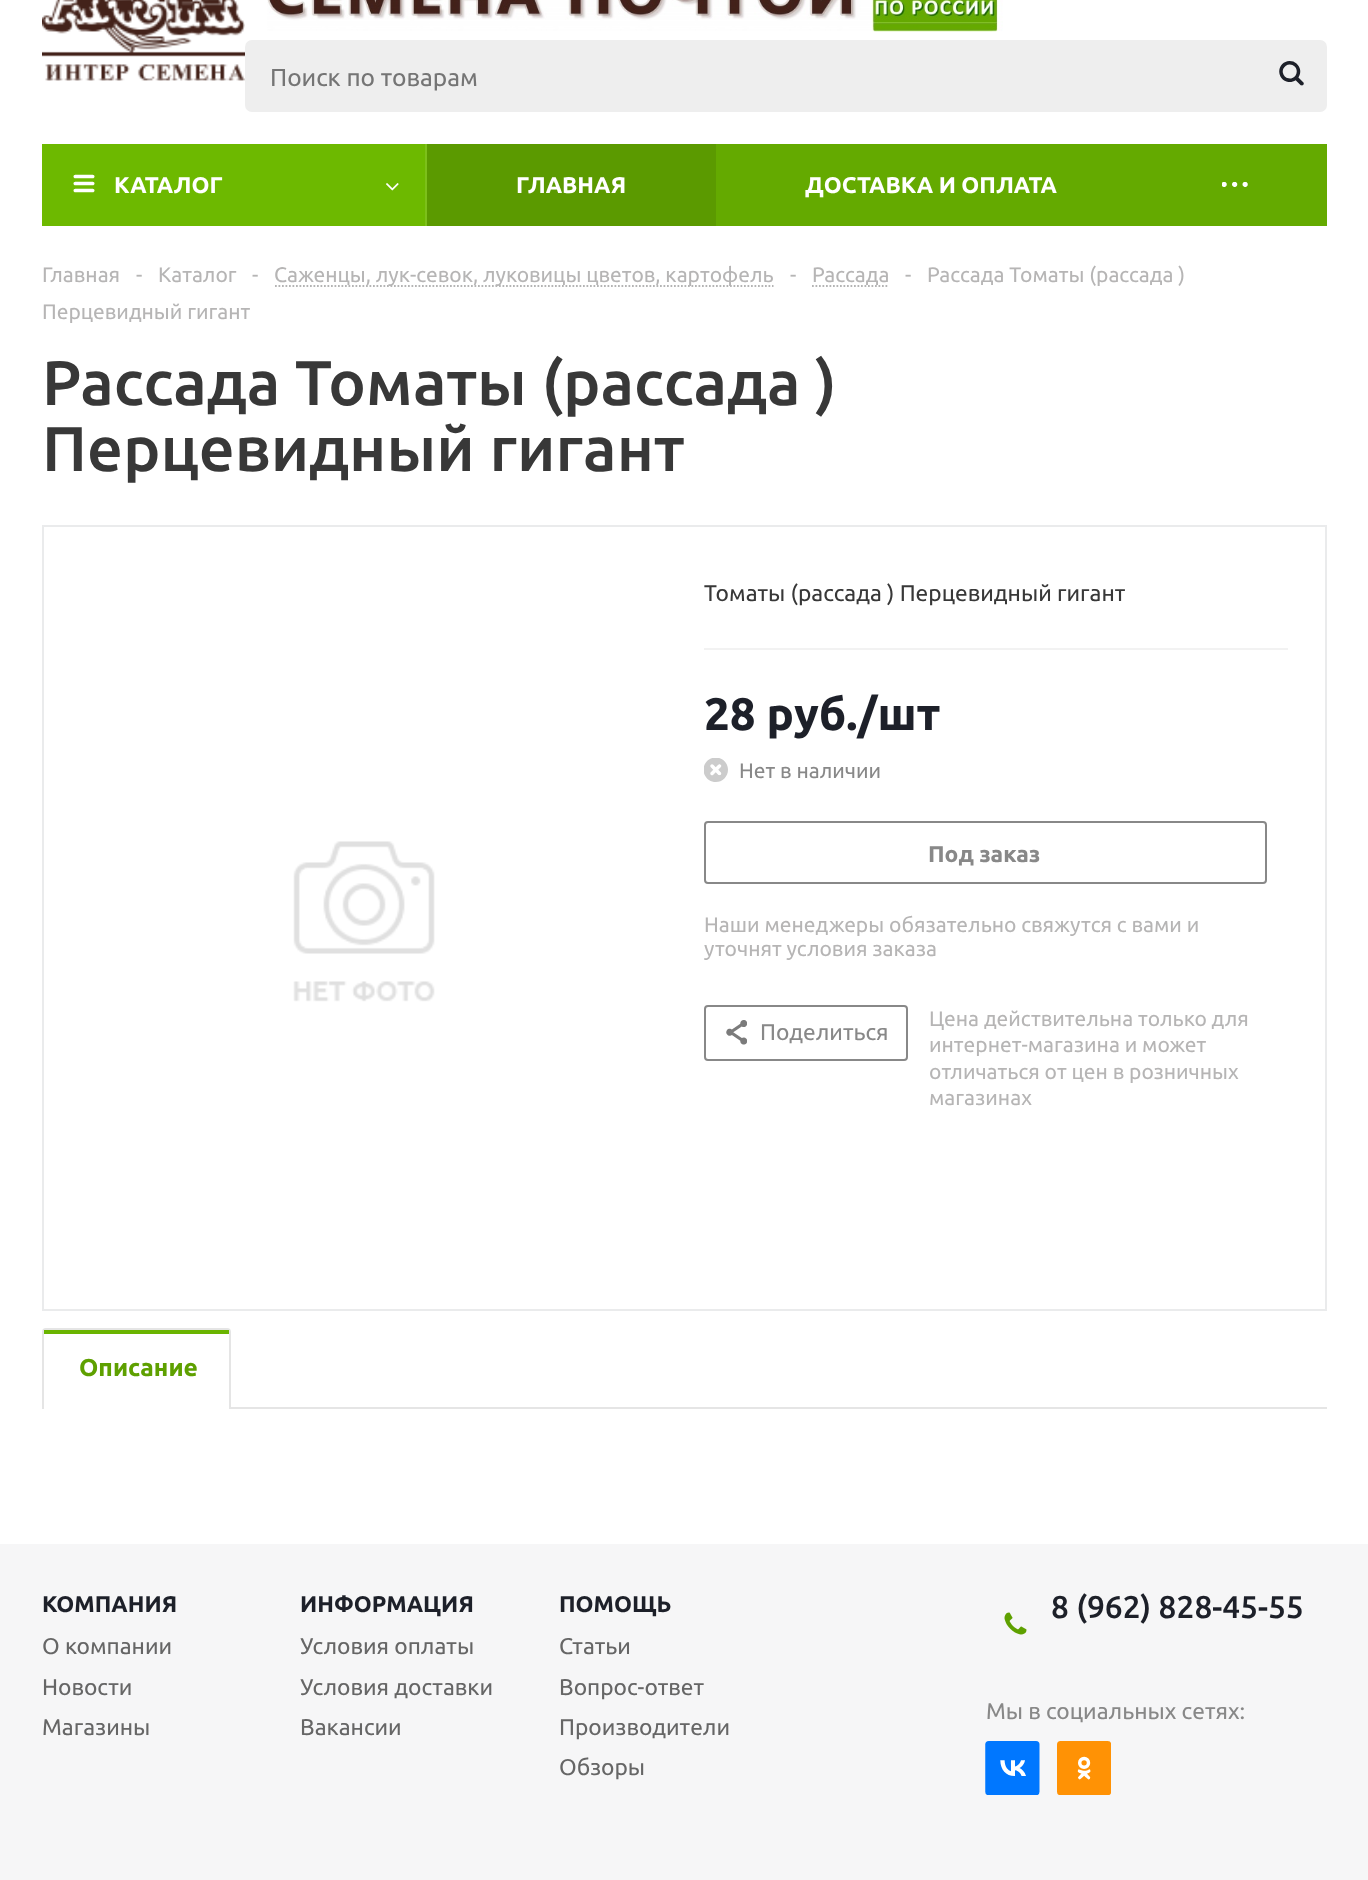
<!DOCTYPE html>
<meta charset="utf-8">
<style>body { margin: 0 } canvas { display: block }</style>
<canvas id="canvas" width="1368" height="1880"></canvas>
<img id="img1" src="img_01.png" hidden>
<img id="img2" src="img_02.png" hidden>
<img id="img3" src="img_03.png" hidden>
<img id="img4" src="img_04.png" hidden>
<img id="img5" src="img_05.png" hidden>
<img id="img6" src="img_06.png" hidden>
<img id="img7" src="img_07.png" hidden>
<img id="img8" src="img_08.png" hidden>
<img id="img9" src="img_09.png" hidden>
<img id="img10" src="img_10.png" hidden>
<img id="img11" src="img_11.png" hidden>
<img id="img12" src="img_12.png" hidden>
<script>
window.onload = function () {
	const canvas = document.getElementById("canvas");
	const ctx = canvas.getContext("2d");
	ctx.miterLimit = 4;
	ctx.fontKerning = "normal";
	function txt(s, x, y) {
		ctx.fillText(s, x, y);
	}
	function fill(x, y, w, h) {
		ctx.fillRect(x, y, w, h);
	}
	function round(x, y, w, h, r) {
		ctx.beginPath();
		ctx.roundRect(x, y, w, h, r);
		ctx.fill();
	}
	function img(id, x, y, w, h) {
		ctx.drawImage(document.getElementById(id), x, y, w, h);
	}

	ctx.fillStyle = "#F6F6F7";
	fill(0, 0, 1368, 1880);
	ctx.fillStyle = "#FFFFFF";
	fill(0, 0, 1368, 1544);
	img("img1", 42, 0, 203, 81);
	img("img2", 267, 0, 736, 32);
	ctx.fillStyle = "#EEEEEE";
	round(245, 40, 1082, 72, 7);
	img("img3", 1279, 61, 25, 25);
	ctx.fillStyle = "#64AA00";
	fill(716, 144, 611, 82);
	ctx.fillStyle = "#6DB900";
	fill(42, 144, 383, 82);
	img("img4", 73, 174, 22, 19);
	ctx.fillStyle = "#7CC01A";
	fill(425, 144, 2, 82);
	img("img5", 386, 183, 13, 8);
	ctx.fillStyle = "#5B9A00";
	fill(427, 144, 289, 82);
	img("img6", 1222, 182, 26, 5);
	ctx.beginPath();
	ctx.moveTo(275, 286);
	ctx.lineTo(773.5, 286);
	ctx.strokeStyle = "#B4B4B4";
	ctx.lineWidth = 1.8;
	ctx.setLineDash([1.75, 1.75]);
	ctx.stroke();
	ctx.beginPath();
	ctx.moveTo(812, 286);
	ctx.lineTo(889, 286);
	ctx.stroke();
	ctx.strokeStyle = "#EAEBEC";
	ctx.lineWidth = 2;
	ctx.setLineDash([]);
	ctx.strokeRect(43, 526, 1283, 784);
	img("img7", 293, 841, 142, 161);
	ctx.fillStyle = "#F2F2F2";
	fill(704, 648, 584, 2);
	img("img8", 704, 758, 24, 24);
	ctx.beginPath();
	ctx.roundRect(705, 822, 561, 61, 3);
	ctx.strokeStyle = "#888888";
	ctx.stroke();
	ctx.beginPath();
	ctx.roundRect(705, 1006, 202, 54, 3);
	ctx.stroke();
	img("img9", 726, 1020, 21, 25);
	ctx.save();
	ctx.beginPath();
	ctx.rect(42, 1311, 1285, 98);
	ctx.clip();
	ctx.beginPath();
	ctx.roundRect(43, 1329, 187, 81, [3, 3, 0, 0]);
	ctx.strokeStyle = "#E5E5E5";
	ctx.stroke();
	ctx.restore();
	ctx.fillStyle = "#6AB400";
	fill(44, 1330, 185, 4);
	ctx.fillStyle = "#E5E5E5";
	fill(231, 1407, 1096, 2);
	img("img10", 1004, 1612, 23, 23);
	img("img11", 985, 1741, 55, 54);
	img("img12", 1057, 1741, 54, 54);
	ctx.font = "24.5px Ubuntu";
	ctx.fillStyle = "#757575";
	txt("Поиск по товарам", 270, 86);
	ctx.font = "bold 22.75px Ubuntu";
	ctx.fillStyle = "#FFFFFF";
	txt("КАТАЛОГ", 114, 193);
	txt("ГЛАВНАЯ", 516, 193);
	txt("ДОСТАВКА И ОПЛАТА", 805, 193);
	ctx.font = "21px Ubuntu";
	ctx.fillStyle = "#B6B5B5";
	txt("Главная", 42, 282);
	txt("-", 136, 282);
	txt("Каталог", 158, 282);
	txt("-", 252, 282);
	txt("Саженцы, лук-севок, луковицы цветов, картофель", 274, 282);
	txt("-", 790, 282);
	txt("Рассада", 812, 282);
	txt("-", 905, 282);
	txt("Рассада Томаты (рассада )", 927, 282);
	txt("Перцевидный гигант", 42, 319);
	ctx.font = "500 63px Ubuntu";
	ctx.fillStyle = "#383838";
	txt("Рассада Томаты (рассада )", 42, 405);
	txt("Перцевидный гигант", 42, 471);
	ctx.font = "22.75px Ubuntu";
	txt("Томаты (рассада ) Перцевидный гигант", 704, 601);
	ctx.font = "bold 45.5px Ubuntu";
	ctx.fillStyle = "#1D2029";
	txt("28 руб./шт", 704, 730);
	ctx.font = "21px Ubuntu";
	ctx.fillStyle = "#888888";
	txt("Нет в наличии", 739, 778);
	ctx.font = "bold 22.75px Ubuntu";
	txt("Под заказ", 928, 862);
	ctx.font = "21px Ubuntu";
	ctx.fillStyle = "#B6B5B5";
	txt("Наши менеджеры обязательно свяжутся с вами и", 704, 932);
	txt("уточнят условия заказа", 704, 956);
	ctx.font = "22.75px Ubuntu";
	ctx.fillStyle = "#888888";
	txt("Поделиться", 760, 1040);
	ctx.font = "21px Ubuntu";
	ctx.fillStyle = "#B6B5B5";
	txt("Цена действительна только для", 929, 1026);
	txt("интернет-магазина и может", 929, 1052);
	txt("отличаться от цен в розничных", 929, 1079);
	txt("магазинах", 929, 1105);
	ctx.font = "bold 24.5px Ubuntu";
	ctx.fillStyle = "#5EA000";
	txt("Описание", 79, 1376);
	ctx.font = "bold 22.75px Ubuntu";
	ctx.fillStyle = "#1D2029";
	txt("КОМПАНИЯ", 42, 1612);
	txt("ИНФОРМАЦИЯ", 300, 1612);
	txt("ПОМОЩЬ", 559, 1612);
	ctx.font = "22.75px Ubuntu";
	ctx.fillStyle = "#666666";
	txt("О компании", 42, 1654);
	txt("Новости", 42, 1695);
	txt("Магазины", 42, 1735);
	txt("Условия оплаты", 300, 1654);
	txt("Условия доставки", 300, 1695);
	txt("Вакансии", 300, 1735);
	txt("Статьи", 559, 1654);
	txt("Вопрос-ответ", 559, 1695);
	txt("Производители", 559, 1735);
	txt("Обзоры", 559, 1775);
	ctx.font = "500 31.5px Ubuntu";
	ctx.fillStyle = "#1D2029";
	txt("8 (962) 828-45-55", 1051, 1618);
	ctx.font = "22.75px Ubuntu";
	ctx.fillStyle = "#888888";
	txt("Мы в социальных сетях:", 986, 1719);
};
</script>
